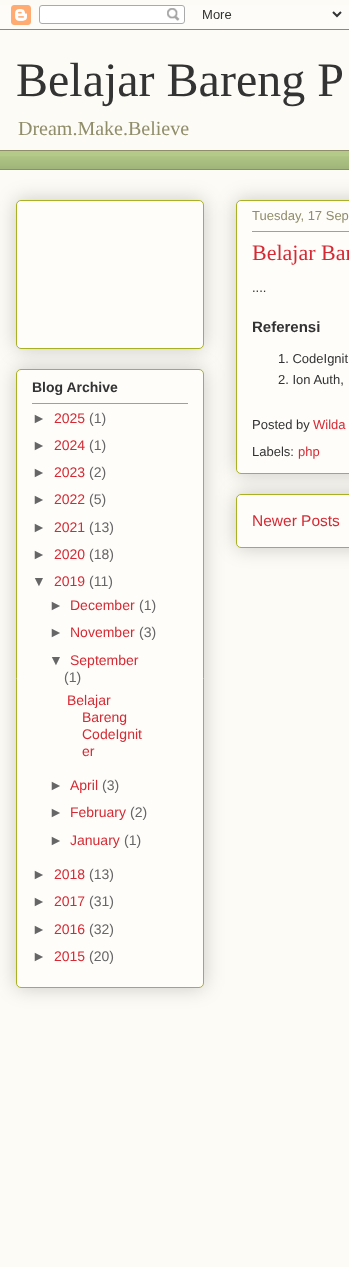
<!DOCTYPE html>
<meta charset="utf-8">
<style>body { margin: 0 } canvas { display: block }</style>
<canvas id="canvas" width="349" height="1267"></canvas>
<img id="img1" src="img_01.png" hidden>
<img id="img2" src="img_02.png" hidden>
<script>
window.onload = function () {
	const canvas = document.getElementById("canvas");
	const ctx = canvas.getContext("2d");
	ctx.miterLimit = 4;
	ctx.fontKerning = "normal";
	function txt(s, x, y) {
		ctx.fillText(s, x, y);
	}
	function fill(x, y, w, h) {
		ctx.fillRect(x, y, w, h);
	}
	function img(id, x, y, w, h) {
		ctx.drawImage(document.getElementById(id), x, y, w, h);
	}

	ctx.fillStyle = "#FCFBF5";
	fill(0, 0, 349, 1267);
	img("img1", 0, 5, 349, 25);
	ctx.fillStyle = "#B3CA88";
	fill(0, 151, 349, 18);
	img("img2", 0, 156, 349, 13);
	ctx.fillStyle = "#908D6A";
	fill(0, 150, 349, 1);
	fill(0, 169, 349, 1);
	ctx.fillStyle = "rgba(0, 0, 0, 0.2)";
	ctx.filter = "blur(10px)";
	ctx.beginPath();
	ctx.roundRect(16, 200, 188, 149, 5);
	ctx.fill();
	ctx.filter = "none";
	ctx.fillStyle = "#FEFDFA";
	ctx.beginPath();
	ctx.roundRect(16.5, 200.5, 187, 148, 4.5);
	ctx.fill();
	ctx.strokeStyle = "#AAB123";
	ctx.stroke();
	ctx.fillStyle = "rgba(0, 0, 0, 0.2)";
	ctx.filter = "blur(10px)";
	ctx.beginPath();
	ctx.roundRect(16, 369, 188, 619, 5);
	ctx.fill();
	ctx.filter = "none";
	ctx.fillStyle = "#FEFDFA";
	ctx.beginPath();
	ctx.roundRect(16.5, 369.5, 187, 618, 4.5);
	ctx.fill();
	ctx.stroke();
	ctx.fillStyle = "#AAB123";
	fill(32, 403, 156, 1);
	ctx.fillStyle = "rgba(0, 0, 0, 0.2)";
	ctx.filter = "blur(10px)";
	ctx.beginPath();
	ctx.roundRect(236, 494, 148, 54, 5);
	ctx.fill();
	ctx.filter = "none";
	ctx.fillStyle = "#FEFDFA";
	ctx.beginPath();
	ctx.roundRect(236.5, 494.5, 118, 53, 4.5);
	ctx.fill();
	ctx.stroke();
	ctx.fillStyle = "rgba(0, 0, 0, 0.2)";
	ctx.filter = "blur(10px)";
	ctx.beginPath();
	ctx.roundRect(236, 200, 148, 274, 5);
	ctx.fill();
	ctx.filter = "none";
	ctx.fillStyle = "#FEFDFA";
	ctx.beginPath();
	ctx.roundRect(236.5, 200.5, 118, 273, 4.5);
	ctx.fill();
	ctx.stroke();
	ctx.fillStyle = "#AAB123";
	fill(252, 231, 97, 1);
	ctx.font = "48px Liberation Serif";
	ctx.fillStyle = "#333333";
	txt("Belajar Bareng P", 16, 96);
	ctx.font = "20px Liberation Serif";
	ctx.fillStyle = "#908D6A";
	txt("Dream.Make.Believe", 18, 135);
	ctx.font = "bold 14px Liberation Sans";
	ctx.fillStyle = "#333333";
	txt("Blog Archive", 32, 392);
	ctx.font = "14px Liberation Sans";
	ctx.fillStyle = "#666666";
	txt("►", 32, 423);
	ctx.fillStyle = "#D52A33";
	txt("2025", 54, 423);
	ctx.fillStyle = "#666666";
	txt("(1)", 89, 423);
	txt("►", 32, 450);
	ctx.fillStyle = "#D52A33";
	txt("2024", 54, 450);
	ctx.fillStyle = "#666666";
	txt("(1)", 89, 450);
	txt("►", 32, 477);
	ctx.fillStyle = "#D52A33";
	txt("2023", 54, 477);
	ctx.fillStyle = "#666666";
	txt("(2)", 89, 477);
	txt("►", 32, 504);
	ctx.fillStyle = "#D52A33";
	txt("2022", 54, 504);
	ctx.fillStyle = "#666666";
	txt("(5)", 89, 504);
	txt("►", 32, 532);
	ctx.fillStyle = "#D52A33";
	txt("2021", 54, 532);
	ctx.fillStyle = "#666666";
	txt("(13)", 89, 532);
	txt("►", 32, 559);
	ctx.fillStyle = "#D52A33";
	txt("2020", 54, 559);
	ctx.fillStyle = "#666666";
	txt("(18)", 89, 559);
	txt("▼", 32, 586);
	ctx.fillStyle = "#D52A33";
	txt("2019", 54, 586);
	ctx.fillStyle = "#666666";
	txt("(11)", 89, 586);
	txt("►", 49, 610);
	ctx.fillStyle = "#D52A33";
	txt("December", 70, 610);
	ctx.fillStyle = "#666666";
	txt("(1)", 139, 610);
	txt("►", 49, 637);
	ctx.fillStyle = "#D52A33";
	txt("November", 70, 637);
	ctx.fillStyle = "#666666";
	txt("(3)", 139, 637);
	txt("▼", 49, 665);
	ctx.fillStyle = "#D52A33";
	txt("September", 70, 665);
	ctx.fillStyle = "#666666";
	txt("(1)", 64, 682);
	ctx.fillStyle = "#D52A33";
	txt("Belajar", 67, 705);
	txt("Bareng", 82, 722);
	txt("CodeIgnit", 82, 739);
	txt("er", 82, 756);
	ctx.fillStyle = "#666666";
	txt("►", 49, 790);
	ctx.fillStyle = "#D52A33";
	txt("April", 70, 790);
	ctx.fillStyle = "#666666";
	txt("(3)", 102, 790);
	txt("►", 49, 817);
	ctx.fillStyle = "#D52A33";
	txt("February", 70, 817);
	ctx.fillStyle = "#666666";
	txt("(2)", 130, 817);
	txt("►", 49, 845);
	ctx.fillStyle = "#D52A33";
	txt("January", 70, 845);
	ctx.fillStyle = "#666666";
	txt("(1)", 124, 845);
	txt("►", 32, 879);
	ctx.fillStyle = "#D52A33";
	txt("2018", 54, 879);
	ctx.fillStyle = "#666666";
	txt("(13)", 89, 879);
	txt("►", 32, 906);
	ctx.fillStyle = "#D52A33";
	txt("2017", 54, 906);
	ctx.fillStyle = "#666666";
	txt("(31)", 89, 906);
	txt("►", 32, 934);
	ctx.fillStyle = "#D52A33";
	txt("2016", 54, 934);
	ctx.fillStyle = "#666666";
	txt("(32)", 89, 934);
	txt("►", 32, 961);
	ctx.fillStyle = "#D52A33";
	txt("2015", 54, 961);
	ctx.fillStyle = "#666666";
	txt("(20)", 89, 961);
	ctx.font = "13px Liberation Sans";
	ctx.fillStyle = "#908D6A";
	txt("Tuesday, 17 Sep", 252, 220);
	ctx.font = "22px Liberation Serif";
	ctx.fillStyle = "#D52A33";
	txt("Belajar Bar", 252, 260);
	ctx.font = "13px Liberation Sans";
	ctx.fillStyle = "#333333";
	txt("....", 252, 292);
	ctx.font = "bold 15px Liberation Sans";
	txt("Referensi", 252, 332);
	ctx.font = "13px Liberation Sans";
	txt("1. CodeIgnit", 278, 363);
	txt("2. Ion Auth,", 278, 384);
	txt("Posted by", 252, 429);
	ctx.fillStyle = "#D52A33";
	txt("Wilda", 313, 429);
	ctx.fillStyle = "#333333";
	txt("Labels:", 252, 456);
	ctx.fillStyle = "#D52A33";
	txt("php", 298, 456);
	ctx.font = "15.5px Liberation Sans";
	txt("Newer Posts", 252, 526);
};
</script>
